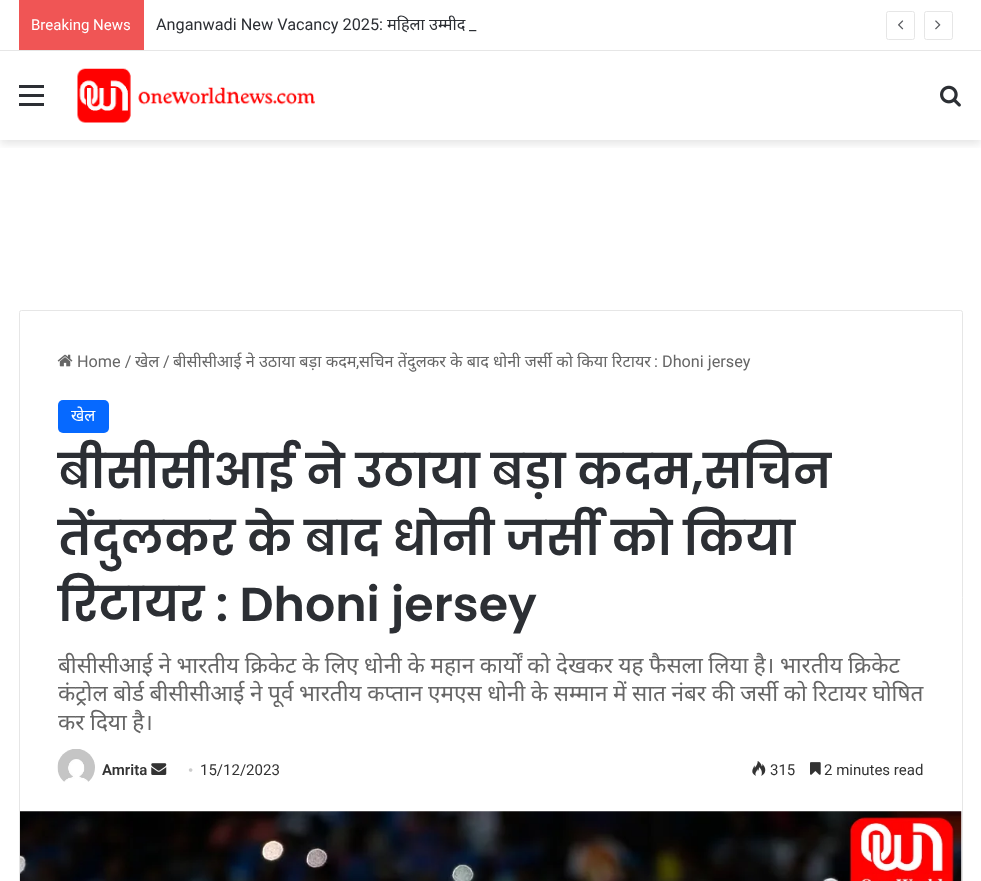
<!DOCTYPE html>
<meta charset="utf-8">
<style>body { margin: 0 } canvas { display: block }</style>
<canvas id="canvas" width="981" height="881"></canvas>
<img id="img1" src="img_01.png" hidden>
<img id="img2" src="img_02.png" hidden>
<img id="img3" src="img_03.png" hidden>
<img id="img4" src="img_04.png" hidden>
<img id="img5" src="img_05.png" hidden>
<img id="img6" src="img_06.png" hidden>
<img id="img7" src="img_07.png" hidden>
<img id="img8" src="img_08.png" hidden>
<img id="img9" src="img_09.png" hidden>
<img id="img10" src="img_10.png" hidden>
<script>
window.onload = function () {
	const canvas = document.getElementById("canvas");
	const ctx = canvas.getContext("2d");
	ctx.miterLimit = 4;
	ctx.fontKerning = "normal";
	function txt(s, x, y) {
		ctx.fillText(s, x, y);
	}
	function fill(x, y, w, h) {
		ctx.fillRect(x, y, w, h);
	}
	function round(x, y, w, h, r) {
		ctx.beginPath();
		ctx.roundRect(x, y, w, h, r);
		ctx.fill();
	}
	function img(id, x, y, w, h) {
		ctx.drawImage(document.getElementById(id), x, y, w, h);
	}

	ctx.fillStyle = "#FFFFFF";
	fill(0, 0, 981, 881);
	ctx.save();
	ctx.beginPath();
	ctx.rect(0, 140, 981, 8);
	ctx.clip();
	ctx.fillStyle = "rgba(0, 0, 0, 0.1)";
	ctx.filter = "blur(4.5px)";
	ctx.beginPath();
	ctx.rect(0, 55, 981, 89);
	ctx.fill();
	ctx.filter = "none";
	ctx.restore();
	fill(6, 49, 969, 1);
	ctx.fillStyle = "#E6E6E6";
	fill(0, 50, 981, 1);
	ctx.fillStyle = "#F05555";
	fill(19, 0, 125, 50);
	ctx.beginPath();
	ctx.roundRect(886.5, 11.5, 28, 28, 2);
	ctx.strokeStyle = "#E6E6E6";
	ctx.stroke();
	img("img1", 898, 20, 6, 10);
	ctx.beginPath();
	ctx.roundRect(924.5, 11.5, 28, 28, 2);
	ctx.stroke();
	img("img2", 935, 20, 6, 10);
	ctx.fillStyle = "#2C2F34";
	fill(19, 94, 25, 3);
	fill(19, 85, 25, 3);
	fill(19, 103, 25, 3);
	img("img3", 77, 68, 238, 55);
	img("img4", 940, 85, 21, 22);
	ctx.beginPath();
	ctx.roundRect(19.5, 310.5, 943, 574, 2);
	ctx.stroke();
	img("img5", 57, 354, 16, 13);
	ctx.fillStyle = "#0669FF";
	round(58, 400, 51, 33, 5);
	img("img6", 57, 749, 38, 33);
	img("img7", 151, 763, 16, 12);
	img("img8", 752, 761, 14, 15);
	img("img9", 810, 762, 11, 13);
	img("img10", 20, 811, 942, 70);
	ctx.font = "15px Roboto";
	ctx.fillStyle = "#FFFFFF";
	txt("Breaking News", 31, 30);
	ctx.font = "16.25px Roboto";
	ctx.fillStyle = "#2C2F34";
	txt("Anganwadi New Vacancy 2025:", 156, 30);
	ctx.font = "16.25px Noto Sans";
	txt("महिला उम्मीद", 387, 30);
	ctx.font = "16.25px Roboto";
	txt("_", 469, 30);
	ctx.fillStyle = "#666666";
	txt("Home /", 77, 367);
	ctx.font = "16.25px Noto Sans";
	txt("खेल", 135, 367);
	ctx.font = "16.25px Roboto";
	txt("/", 163, 367);
	ctx.font = "16.25px Noto Sans";
	txt("बीसीसीआई ने उठाया बड़ा कदम", 173, 367);
	ctx.font = "16.25px Roboto";
	txt(",", 356, 367);
	ctx.font = "16.25px Noto Sans";
	txt("सचिन तेंदुलकर के बाद धोनी जर्सी को किया रिटायर", 359, 367);
	ctx.font = "16.25px Roboto";
	txt(": Dhoni jersey", 654, 367);
	ctx.font = "16.25px Noto Sans";
	ctx.fillStyle = "#FFFFFF";
	txt("खेल", 71, 421);
	ctx.font = "600 47.5px Poppins";
	ctx.fillStyle = "#2C2F34";
	txt("बीसीसीआई ने उठाया बड़ा कदम,सचिन", 58, 488);
	txt("तेंदुलकर के बाद धोनी जर्सी को किया", 58, 555);
	txt("रिटायर : Dhoni jersey", 58, 621);
	ctx.wordSpacing = "-0.25px";
	ctx.font = "22.5px Noto Sans";
	ctx.fillStyle = "#666666";
	txt("बीसीसीआई ने भारतीय क्रिकेट के लिए धोनी के महान कार्यों को देखकर यह फैसला लिया है। भारतीय क्रिकेट", 58, 673);
	txt("कंट्रोल बोर्ड बीसीसीआई ने पूर्व भारतीय कप्तान एमएस धोनी के सम्मान में सात नंबर की जर्सी को रिटायर घोषित", 58, 701);
	txt("कर दिया है।", 58, 730);
	ctx.wordSpacing = "0px";
	ctx.font = "600 15px Roboto";
	ctx.fillStyle = "#333333";
	txt("Amrita", 102, 775);
	ctx.font = "15px Liberation Serif";
	ctx.fillStyle = "#CCCCCC";
	txt("•", 188, 775);
	ctx.font = "15px Roboto";
	ctx.fillStyle = "#333333";
	txt("15/12/2023", 200, 775);
	txt("315", 770, 775);
	txt("2 minutes read", 824, 775);
};
</script>
